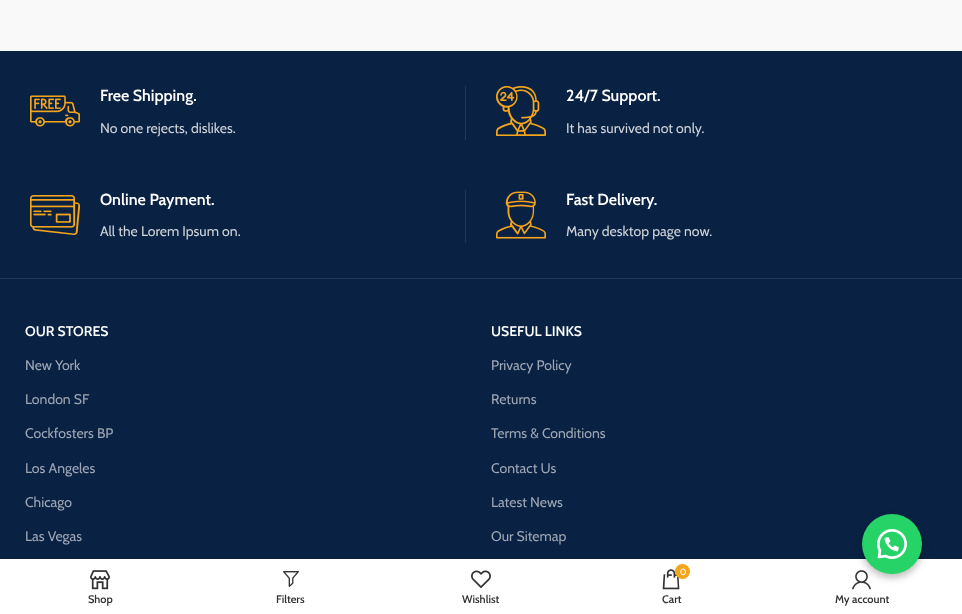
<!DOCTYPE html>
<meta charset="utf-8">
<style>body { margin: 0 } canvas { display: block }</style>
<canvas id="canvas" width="962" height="614"></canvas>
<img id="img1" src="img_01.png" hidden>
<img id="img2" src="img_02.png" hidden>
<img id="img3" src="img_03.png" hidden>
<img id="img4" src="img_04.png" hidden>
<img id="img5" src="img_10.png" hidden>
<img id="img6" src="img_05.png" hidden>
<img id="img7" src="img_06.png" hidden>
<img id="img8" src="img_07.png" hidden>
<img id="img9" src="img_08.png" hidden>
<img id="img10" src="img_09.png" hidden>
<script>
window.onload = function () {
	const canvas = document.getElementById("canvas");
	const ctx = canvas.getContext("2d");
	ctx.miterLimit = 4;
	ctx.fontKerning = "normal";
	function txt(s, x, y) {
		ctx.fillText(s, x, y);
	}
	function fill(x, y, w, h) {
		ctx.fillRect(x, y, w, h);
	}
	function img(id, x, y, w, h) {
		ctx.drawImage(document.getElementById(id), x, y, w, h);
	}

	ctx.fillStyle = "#092143";
	fill(0, 0, 962, 614);
	ctx.fillStyle = "#F9F9F9";
	fill(0, 0, 962, 51);
	ctx.fillStyle = "#223756";
	fill(0, 278, 962, 1);
	fill(465, 86, 1, 54);
	img("img1", 30, 95, 50, 32);
	img("img2", 496, 86, 50, 50);
	fill(465, 190, 1, 53);
	img("img3", 30, 195, 50, 40);
	img("img4", 496, 191, 50, 48);
	ctx.fillStyle = "#FFFFFF";
	fill(0, 559, 962, 55);
	img("img5", 852, 570, 19, 20);
	ctx.fillStyle = "rgba(0, 0, 0, 0.25)";
	ctx.filter = "blur(3.5px)";
	ctx.beginPath();
	ctx.roundRect(862, 518, 60, 60, 30);
	ctx.fill();
	ctx.filter = "none";
	ctx.fillStyle = "#25D366";
	ctx.beginPath();
	ctx.arc(892, 544, 30, 0, Math.PI * 2);
	ctx.fill();
	img("img6", 877, 529, 30, 30);
	img("img7", 90, 570, 20, 20);
	img("img8", 283, 571, 16, 16);
	img("img9", 471, 570, 20, 18);
	img("img10", 662, 569, 18, 21);
	ctx.fillStyle = "#F4A51C";
	ctx.beginPath();
	ctx.arc(682.5, 571.5, 7.5, 0, Math.PI * 2);
	ctx.fill();
	ctx.font = "600 16px Cabin";
	ctx.fillStyle = "#FFFFFF";
	txt("Free Shipping.", 100, 101);
	ctx.font = "14px Cabin";
	ctx.fillStyle = "#CED3D9";
	txt("No one rejects, dislikes.", 100, 133);
	ctx.font = "600 16px Cabin";
	ctx.fillStyle = "#FFFFFF";
	txt("24/7 Support.", 566, 101);
	ctx.font = "14px Cabin";
	ctx.fillStyle = "#CED3D9";
	txt("It has survived not only.", 566, 133);
	ctx.font = "600 16px Cabin";
	ctx.fillStyle = "#FFFFFF";
	txt("Online Payment.", 100, 205);
	ctx.font = "14px Cabin";
	ctx.fillStyle = "#CED3D9";
	txt("All the Lorem Ipsum on.", 100, 236);
	ctx.font = "600 16px Cabin";
	ctx.fillStyle = "#FFFFFF";
	txt("Fast Delivery.", 566, 205);
	ctx.font = "14px Cabin";
	ctx.fillStyle = "#CED3D9";
	txt("Many desktop page now.", 566, 236);
	ctx.font = "600 14px Cabin";
	ctx.fillStyle = "#FFFFFF";
	txt("OUR STORES", 25, 336);
	ctx.font = "14px Cabin";
	ctx.fillStyle = "#9DA6B4";
	txt("New York", 25, 370);
	txt("London SF", 25, 404);
	txt("Cockfosters BP", 25, 438);
	txt("Los Angeles", 25, 473);
	txt("Chicago", 25, 507);
	txt("Las Vegas", 25, 541);
	ctx.font = "600 14px Cabin";
	ctx.fillStyle = "#FFFFFF";
	txt("USEFUL LINKS", 491, 336);
	ctx.font = "14px Cabin";
	ctx.fillStyle = "#9DA6B4";
	txt("Privacy Policy", 491, 370);
	txt("Returns", 491, 404);
	txt("Terms & Conditions", 491, 438);
	txt("Contact Us", 491, 473);
	txt("Latest News", 491, 507);
	txt("Our Sitemap", 491, 541);
	ctx.font = "600 11px Cabin";
	ctx.fillStyle = "#333333";
	txt("Shop", 88, 603);
	txt("Filters", 276, 603);
	txt("Wishlist", 462, 603);
	ctx.font = "9px Cabin";
	ctx.fillStyle = "#FFFFFF";
	txt("0", 680, 575);
	ctx.font = "600 11px Cabin";
	ctx.fillStyle = "#333333";
	txt("Cart", 662, 603);
	txt("My account", 835, 603);
};
</script>
